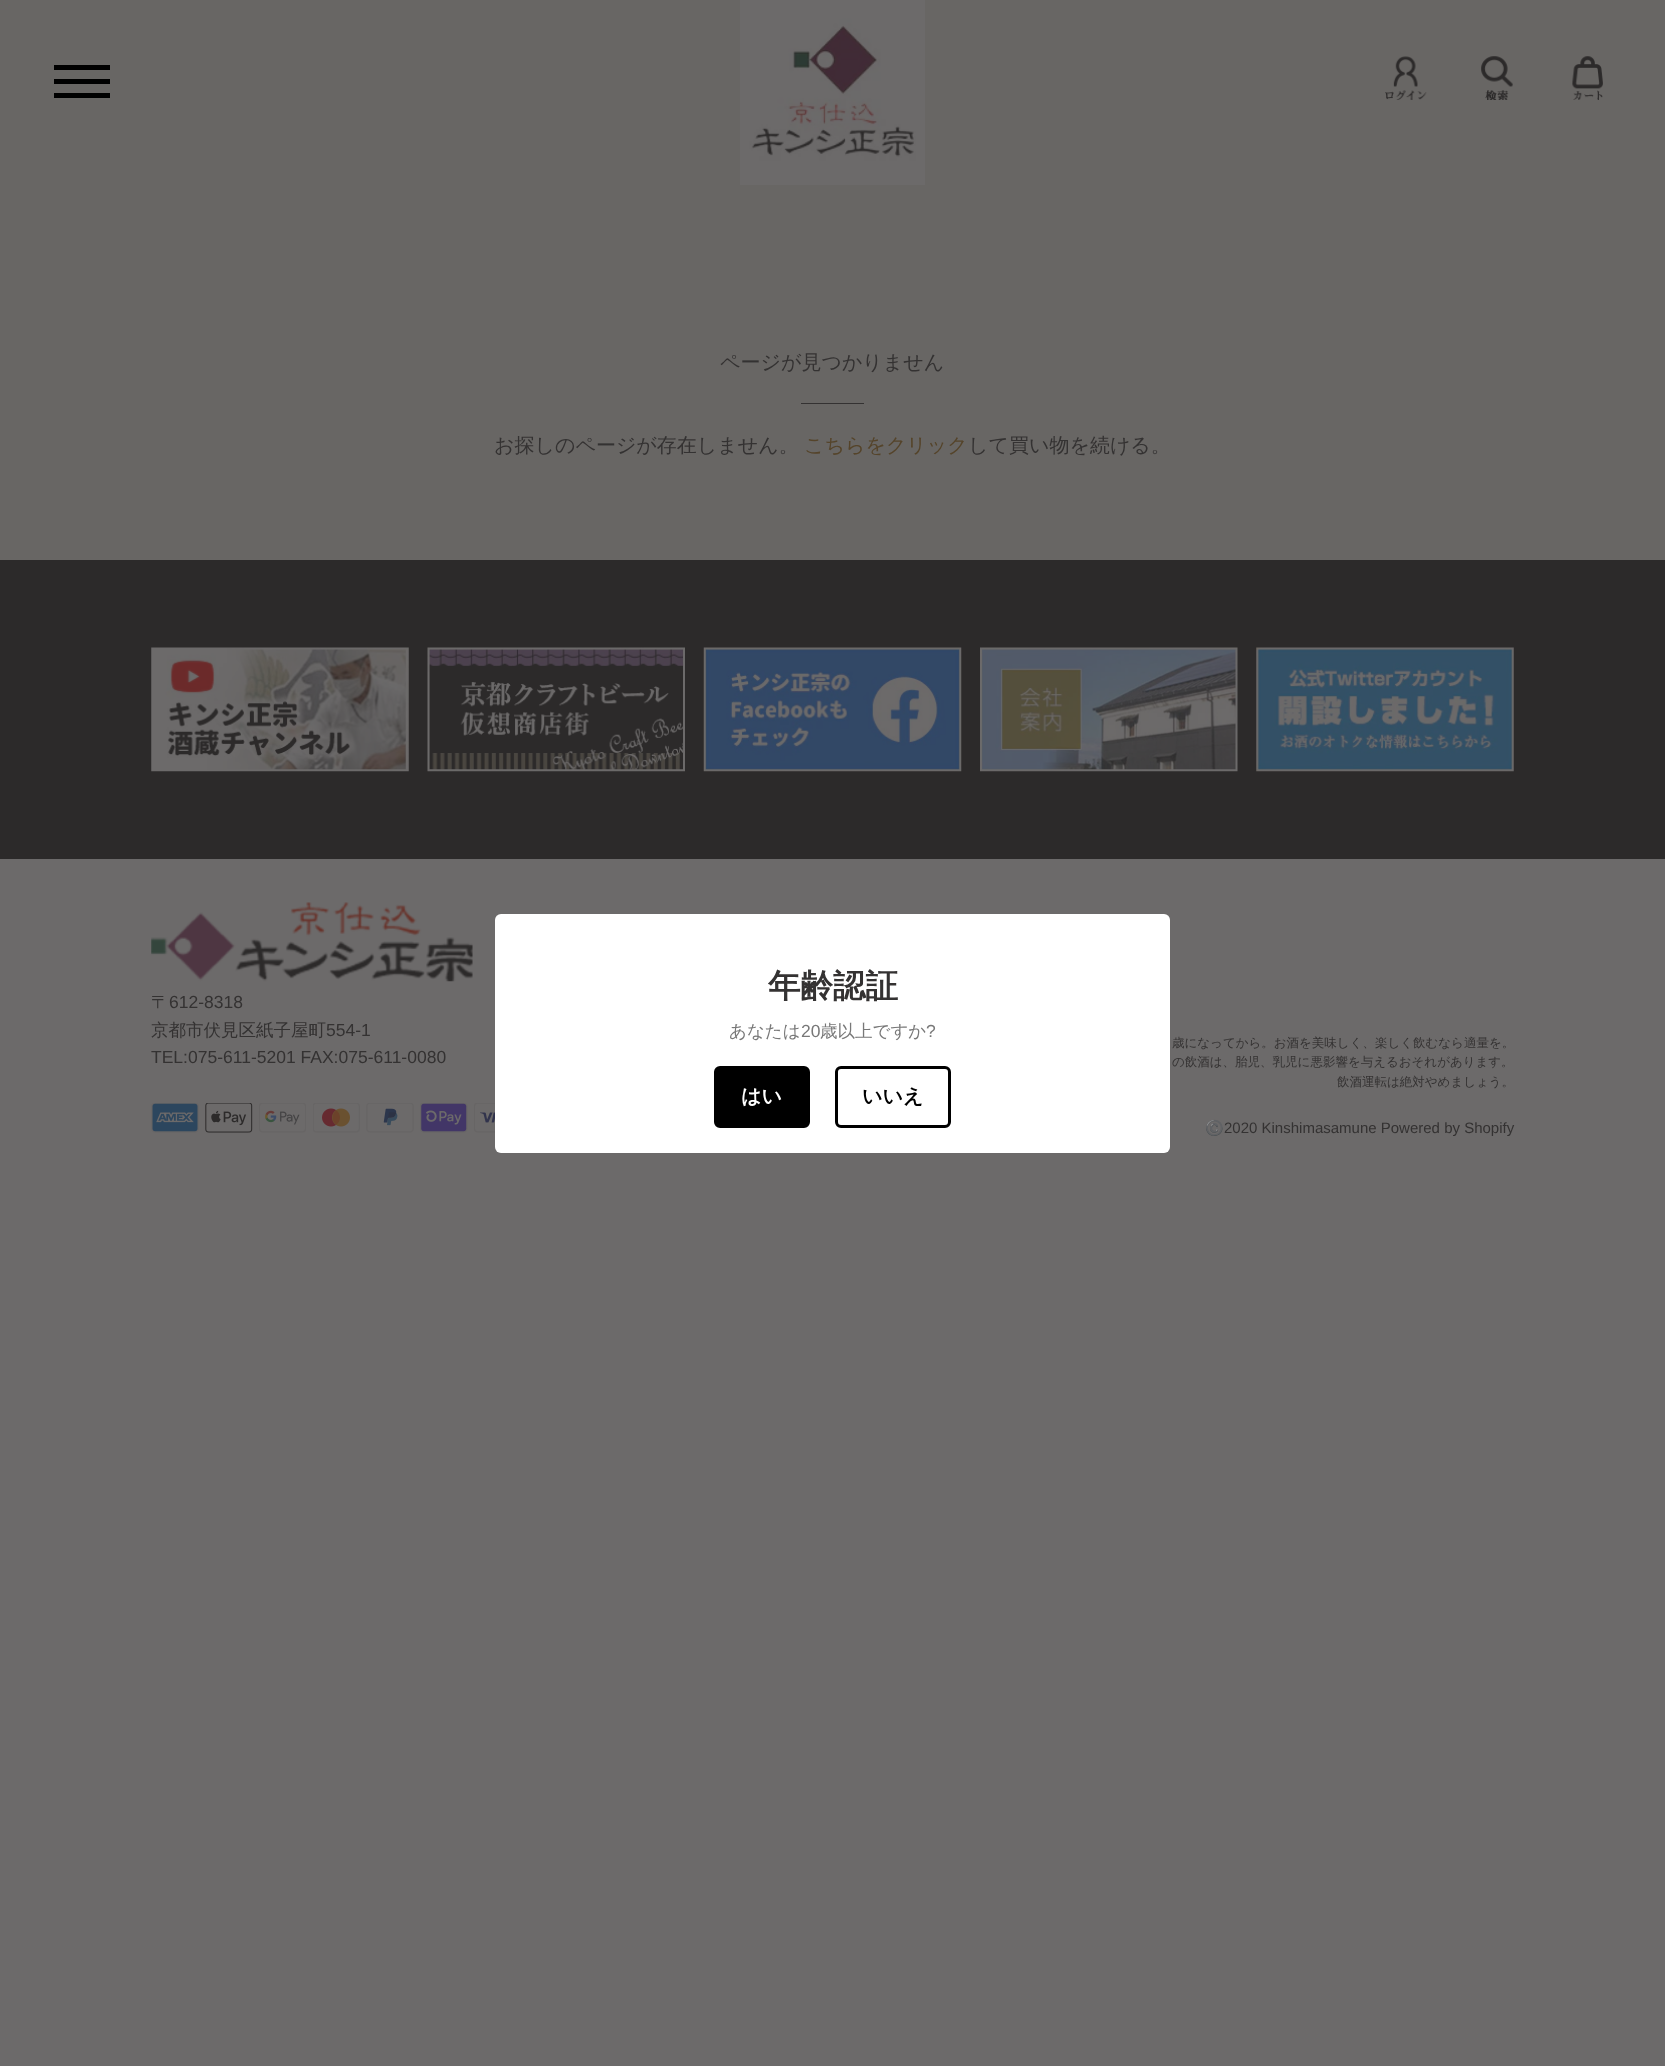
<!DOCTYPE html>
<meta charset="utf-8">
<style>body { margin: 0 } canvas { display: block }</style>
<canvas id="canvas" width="1665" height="2066"></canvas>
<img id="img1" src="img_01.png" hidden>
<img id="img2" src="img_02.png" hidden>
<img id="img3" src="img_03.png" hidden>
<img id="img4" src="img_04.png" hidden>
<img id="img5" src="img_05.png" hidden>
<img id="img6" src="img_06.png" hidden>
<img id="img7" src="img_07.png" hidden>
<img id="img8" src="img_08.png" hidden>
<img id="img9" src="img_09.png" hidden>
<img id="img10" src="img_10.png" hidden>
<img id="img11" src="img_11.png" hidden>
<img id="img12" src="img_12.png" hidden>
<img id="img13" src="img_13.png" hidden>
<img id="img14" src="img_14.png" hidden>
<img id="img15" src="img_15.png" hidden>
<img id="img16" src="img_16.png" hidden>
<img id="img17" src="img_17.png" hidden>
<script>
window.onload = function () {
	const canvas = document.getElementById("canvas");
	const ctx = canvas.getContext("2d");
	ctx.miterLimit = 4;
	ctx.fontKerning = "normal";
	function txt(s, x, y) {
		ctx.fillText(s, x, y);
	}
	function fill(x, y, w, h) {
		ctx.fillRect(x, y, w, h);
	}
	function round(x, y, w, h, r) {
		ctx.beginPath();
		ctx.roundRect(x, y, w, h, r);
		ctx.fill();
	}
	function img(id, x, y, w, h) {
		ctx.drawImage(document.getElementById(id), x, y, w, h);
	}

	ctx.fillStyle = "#6C6A6A";
	fill(0, 0, 1665, 2066);
	ctx.fillStyle = "#686664";
	fill(0, 0, 1665, 560);
	ctx.fillStyle = "#000000";
	fill(54, 65, 56, 5);
	fill(54, 79, 56, 5);
	fill(54, 93, 56, 5);
	img("img1", 740, 0, 185, 185);
	img("img2", 1385, 56, 42, 44);
	img("img3", 1481, 56, 32, 44);
	img("img4", 1572, 56, 31, 44);
	ctx.fillStyle = "#343232";
	fill(801, 403, 63, 1);
	ctx.fillStyle = "#2C2A2A";
	fill(0, 560, 1665, 299);
	img("img5", 151, 647, 258, 125);
	img("img6", 427, 647, 258, 125);
	img("img7", 703, 647, 259, 125);
	img("img8", 980, 647, 258, 125);
	img("img9", 1256, 647, 258, 125);
	img("img10", 151, 902, 322, 80);
	img("img11", 151, 1103, 48, 30);
	img("img12", 205, 1103, 48, 30);
	img("img13", 259, 1103, 47, 30);
	img("img14", 313, 1103, 47, 30);
	img("img15", 366, 1103, 48, 30);
	img("img16", 420, 1103, 48, 30);
	img("img17", 474, 1103, 21, 30);
	ctx.fillStyle = "#FFFFFF";
	round(495, 914, 675, 239, 6);
	ctx.fillStyle = "#000000";
	ctx.beginPath();
	ctx.roundRect(715.5, 1067.5, 93, 59, 4.5);
	ctx.fill();
	ctx.strokeStyle = "#000000";
	ctx.lineWidth = 3;
	ctx.stroke();
	ctx.beginPath();
	ctx.roundRect(836.5, 1067.5, 113, 59, 4.5);
	ctx.stroke();
	ctx.font = "500 20px WenQuanYi Zen Hei";
	ctx.fillStyle = "#343232";
	txt("ページが見つかりません", 720, 369);
	txt("お探しのページが存在しません。", 494, 452);
	ctx.fillStyle = "#55442A";
	txt("こちらをクリック", 804, 452);
	ctx.fillStyle = "#343232";
	txt("して買い物を続ける。", 968, 452);
	ctx.font = "500 17.5px WenQuanYi Zen Hei";
	txt("〒", 151, 1008);
	ctx.font = "17.5px Liberation Sans";
	txt("612-8318", 169, 1008);
	ctx.font = "500 17.5px WenQuanYi Zen Hei";
	txt("京都市伏見区紙子屋町", 151, 1036);
	ctx.font = "17.5px Liberation Sans";
	txt("554-1", 326, 1036);
	txt("TEL:075-611-5201 FAX:075-611-0080", 151, 1063);
	ctx.font = "500 12.5px WenQuanYi Zen Hei";
	txt("歳になってから。お酒を美味しく、楽しく飲むなら適量を。", 1172, 1047);
	txt("の飲酒は、胎児、乳児に悪影響を与えるおそれがあります。", 1172, 1066);
	txt("飲酒運転は絶対やめましょう。", 1337, 1086);
	ctx.font = "15px Noto Color Emoji";
	txt("©️", 1205, 1133);
	ctx.font = "15px Liberation Sans";
	txt("2020 Kinshimasamune Powered by Shopify", 1224, 1133);
	ctx.font = "bold 32.5px WenQuanYi Zen Hei";
	txt("年齢認証", 768, 997);
	ctx.font = "500 17.5px WenQuanYi Zen Hei";
	ctx.fillStyle = "#787878";
	txt("あなたは", 729, 1037);
	ctx.font = "17.5px Liberation Sans";
	txt("20", 801, 1037);
	ctx.font = "500 17.5px WenQuanYi Zen Hei";
	txt("歳以上ですか", 820, 1037);
	ctx.font = "17.5px Liberation Sans";
	txt("?", 926, 1037);
	ctx.font = "bold 20px WenQuanYi Zen Hei";
	ctx.fillStyle = "#FFFFFF";
	txt("はい", 741, 1103);
	ctx.fillStyle = "#000000";
	txt("いいえ", 862, 1103);
};
</script>
